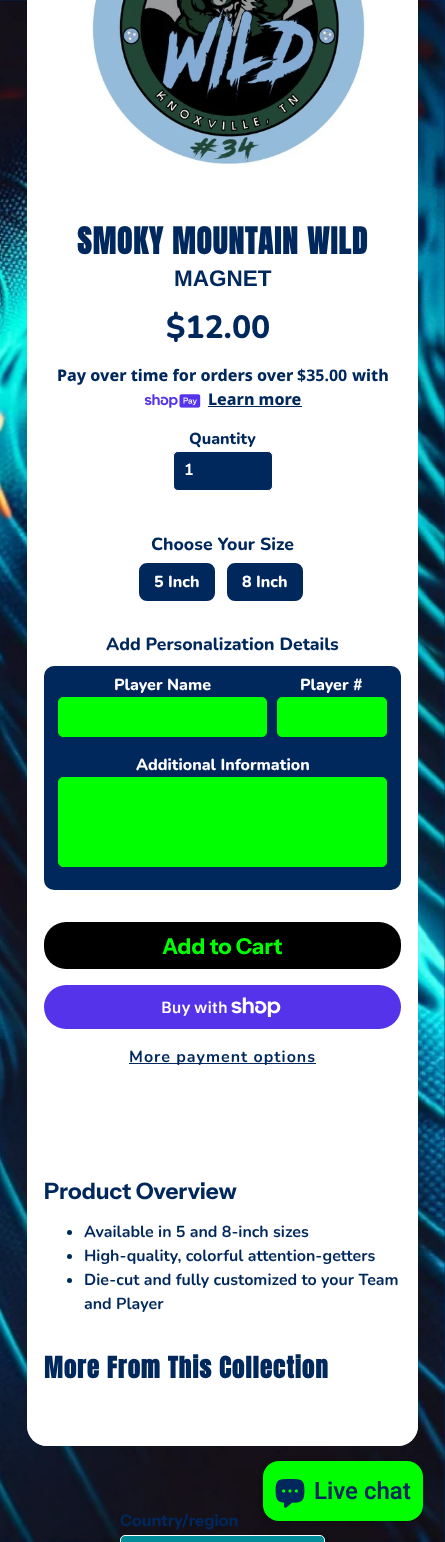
<!DOCTYPE html>
<meta charset="utf-8">
<style>body { margin: 0 } canvas { display: block }</style>
<canvas id="canvas" width="445" height="1542"></canvas>
<img id="img1" src="img_01.png" hidden>
<img id="img2" src="img_02.png" hidden>
<img id="img3" src="img_03.png" hidden>
<img id="img4" src="img_04.png" hidden>
<img id="img5" src="img_05.png" hidden>
<script>
window.onload = function () {
	const canvas = document.getElementById("canvas");
	const ctx = canvas.getContext("2d");
	ctx.miterLimit = 4;
	ctx.fontKerning = "normal";
	function txt(s, x, y) {
		ctx.fillText(s, x, y);
	}
	function fill(x, y, w, h) {
		ctx.fillRect(x, y, w, h);
	}
	function round(x, y, w, h, r) {
		ctx.beginPath();
		ctx.roundRect(x, y, w, h, r);
		ctx.fill();
	}
	function img(id, x, y, w, h) {
		ctx.drawImage(document.getElementById(id), x, y, w, h);
	}

	ctx.fillStyle = "#00285C";
	fill(0, 0, 445, 1542);
	img("img1", 0, 0, 445, 1542);
	ctx.fillStyle = "#FFFFFF";
	round(27, -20, 391, 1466, 20);
	ctx.beginPath();
	ctx.roundRect(27.5, -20.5, 390, 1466, 19.5);
	ctx.strokeStyle = "rgba(255, 255, 255, 0.7)";
	ctx.stroke();
	img("img2", 91, 0, 276, 166);
	img("img3", 144, 394, 57, 14);
	ctx.fillStyle = "#00285C";
	fill(208, 406, 94, 1);
	ctx.beginPath();
	ctx.roundRect(173.5, 451.5, 99, 39, 4.5);
	ctx.fill();
	ctx.strokeStyle = "#FFFFFF";
	ctx.stroke();
	ctx.beginPath();
	ctx.roundRect(138, 562, 78, 40, 9);
	ctx.fill();
	ctx.lineWidth = 2;
	ctx.stroke();
	ctx.beginPath();
	ctx.roundRect(226, 562, 78, 40, 9);
	ctx.fill();
	ctx.stroke();
	round(44, 666, 357, 224, 10);
	ctx.fillStyle = "#00FF00";
	ctx.beginPath();
	ctx.roundRect(58.5, 697.5, 208, 39, 4.5);
	ctx.fill();
	ctx.strokeStyle = "#00FF00";
	ctx.lineWidth = 1;
	ctx.stroke();
	ctx.beginPath();
	ctx.roundRect(277.5, 697.5, 109, 39, 4.5);
	ctx.fill();
	ctx.stroke();
	ctx.beginPath();
	ctx.roundRect(58.5, 777.5, 328, 89, 4.5);
	ctx.fill();
	ctx.stroke();
	ctx.fillStyle = "#000000";
	round(44, 922, 357, 47, 22);
	ctx.fillStyle = "#5433EB";
	round(44, 985, 357, 44, 22);
	img("img4", 231, 997, 50, 20);
	ctx.fillStyle = "#00285C";
	fill(129, 1063, 187, 1);
	ctx.beginPath();
	ctx.arc(69.5, 1232.5, 2.5, 0, Math.PI * 2);
	ctx.fill();
	ctx.beginPath();
	ctx.arc(69.5, 1256.5, 2.5, 0, Math.PI * 2);
	ctx.fill();
	ctx.beginPath();
	ctx.arc(69.5, 1280.5, 2.5, 0, Math.PI * 2);
	ctx.fill();
	ctx.fillStyle = "rgba(0, 0, 0, 0.15)";
	ctx.filter = "blur(2.5px)";
	ctx.beginPath();
	ctx.roundRect(263, 1461, 160, 60, 16);
	ctx.fill();
	ctx.filter = "none";
	ctx.fillStyle = "#00FF00";
	round(263, 1461, 160, 60, 16);
	img("img5", 275, 1479, 30, 29);
	ctx.fillStyle = "#008C99";
	ctx.beginPath();
	ctx.roundRect(120.5, 1535.5, 204, 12, 4.5);
	ctx.fill();
	ctx.strokeStyle = "#FFFFFF";
	ctx.stroke();
	ctx.letterSpacing = "1px";
	ctx.font = "bold 31.25px Anton";
	ctx.fillStyle = "#00285C";
	txt("SMOKY MOUNTAIN WILD", 77, 254);
	ctx.letterSpacing = "0px";
	ctx.font = "bold 22.5px Liberation Sans";
	txt("MAGNET", 174, 286);
	ctx.font = "800 32px Nunito";
	txt("$12.00", 166, 338);
	ctx.font = "800 16px Noto Sans";
	txt("Pay over time for orders over", 57, 381);
	ctx.font = "bold 16px Noto Sans";
	txt("$35.00", 297, 381);
	ctx.font = "800 16px Noto Sans";
	txt("with", 352, 381);
	txt("Learn more", 208, 405);
	ctx.font = "800 16px Nunito";
	txt("Quantity", 189, 444);
	ctx.font = "bold 16px Nunito";
	ctx.fillStyle = "#FFFFFF";
	txt("1", 184, 475);
	ctx.font = "800 17.6px Nunito";
	ctx.fillStyle = "#00285C";
	txt("Choose Your Size", 151, 550);
	ctx.font = "800 16px Nunito";
	ctx.fillStyle = "#FFFFFF";
	txt("5 Inch", 154, 587);
	txt("8 Inch", 242, 587);
	ctx.font = "800 17.6px Nunito";
	ctx.fillStyle = "#00285C";
	txt("Add Personalization Details", 106, 650);
	ctx.font = "800 16px Nunito";
	ctx.fillStyle = "#FFFFFF";
	txt("Player Name", 114, 690);
	txt("Player #", 300, 690);
	txt("Additional Information", 136, 770);
	ctx.font = "bold 22px Instrument Sans";
	ctx.fillStyle = "#00FF00";
	txt("Add to Cart", 162, 954);
	ctx.font = "600 16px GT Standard";
	ctx.fillStyle = "#FFFFFF";
	txt("Buy with", 161, 1013);
	ctx.letterSpacing = "1px";
	ctx.font = "bold 16px Nunito";
	ctx.fillStyle = "#00285C";
	txt("More payment options", 129, 1062);
	ctx.letterSpacing = "0px";
	ctx.font = "bold 22.5px Instrument Sans";
	txt("Product Overview", 44, 1199);
	ctx.font = "bold 16px Nunito";
	txt("Available in 5 and 8-inch sizes", 84, 1237);
	txt("High-quality, colorful attention-getters", 84, 1261);
	txt("Die-cut and fully customized to your Team", 84, 1285);
	txt("and Player", 84, 1309);
	ctx.letterSpacing = "1px";
	ctx.font = "bold 25px Anton";
	txt("More From This Collection", 44, 1378);
	ctx.letterSpacing = "0px";
	ctx.font = "600 24px Roboto";
	txt("Live chat", 314, 1499);
	ctx.font = "bold 16px Instrument Sans";
	txt("Country/region", 120, 1526);
};
</script>
